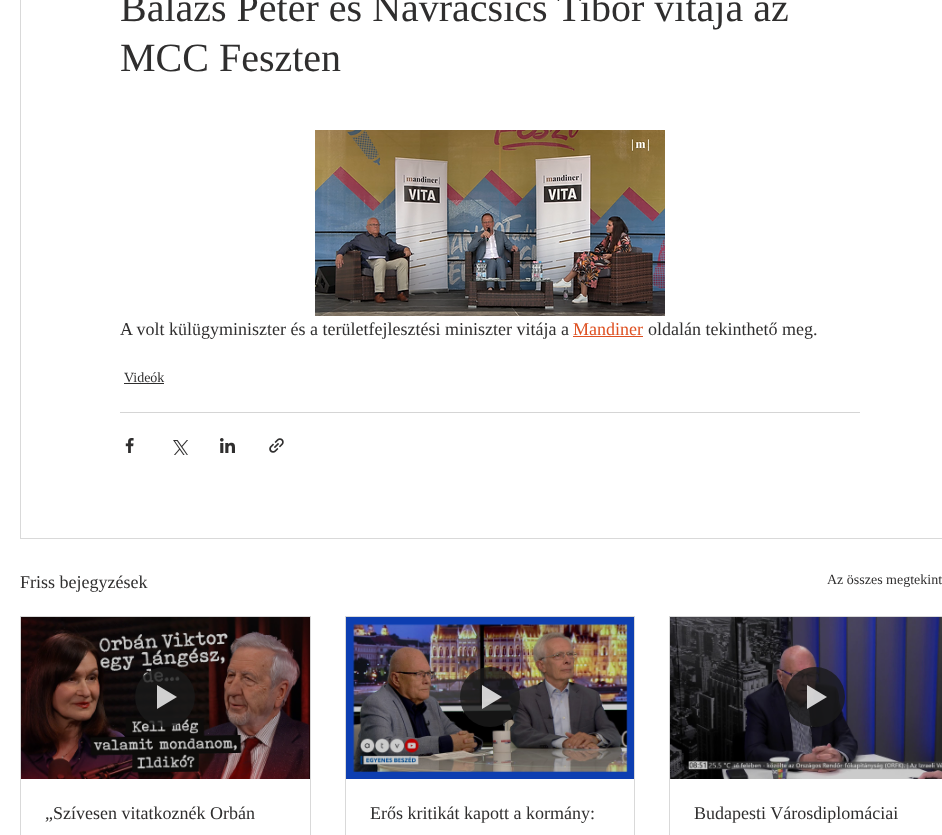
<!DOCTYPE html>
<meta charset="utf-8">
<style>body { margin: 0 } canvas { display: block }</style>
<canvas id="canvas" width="942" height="835"></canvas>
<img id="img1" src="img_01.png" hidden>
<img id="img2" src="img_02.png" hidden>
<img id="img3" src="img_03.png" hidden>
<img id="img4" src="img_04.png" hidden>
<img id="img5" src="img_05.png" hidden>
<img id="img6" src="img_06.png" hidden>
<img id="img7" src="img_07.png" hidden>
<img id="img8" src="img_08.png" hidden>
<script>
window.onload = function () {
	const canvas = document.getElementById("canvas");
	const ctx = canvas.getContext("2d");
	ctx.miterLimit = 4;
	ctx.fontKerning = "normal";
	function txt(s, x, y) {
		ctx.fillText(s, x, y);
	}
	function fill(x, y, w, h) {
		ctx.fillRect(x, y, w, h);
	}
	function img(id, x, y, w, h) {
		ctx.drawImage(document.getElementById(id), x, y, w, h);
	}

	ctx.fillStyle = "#FFFFFF";
	fill(0, 0, 942, 835);
	ctx.strokeStyle = "#D9D9D9";
	ctx.strokeRect(20.5, -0.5, 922, 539);
	img("img1", 315, 130, 350, 186);
	ctx.fillStyle = "#DE5021";
	fill(573, 336, 70, 1);
	ctx.fillStyle = "#2F2E2E";
	fill(124, 383, 40, 1);
	ctx.fillStyle = "#D5D5D5";
	fill(120, 412, 740, 1);
	img("img2", 125, 438, 9, 15);
	img("img3", 173, 440, 15, 15);
	img("img4", 220, 438, 15, 15);
	img("img5", 269, 438, 15, 15);
	ctx.strokeRect(20.5, 616.5, 290, 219);
	img("img6", 21, 617, 289, 162);
	ctx.fillStyle = "rgba(26, 26, 26, 0.8)";
	ctx.beginPath();
	ctx.arc(165, 697, 30, 0, Math.PI * 2);
	ctx.fill();
	ctx.fillStyle = "rgba(255, 255, 255, 0.8)";
	ctx.beginPath();
	ctx.moveTo(157, 685);
	ctx.lineTo(157, 709);
	ctx.lineTo(177, 697);
	ctx.closePath();
	ctx.fill();
	ctx.strokeRect(345.5, 616.5, 289, 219);
	img("img7", 346, 617, 288, 162);
	ctx.fillStyle = "rgba(26, 26, 26, 0.8)";
	ctx.beginPath();
	ctx.arc(490, 697, 30, 0, Math.PI * 2);
	ctx.fill();
	ctx.fillStyle = "rgba(255, 255, 255, 0.8)";
	ctx.beginPath();
	ctx.moveTo(482, 685);
	ctx.lineTo(482, 709);
	ctx.lineTo(502, 697);
	ctx.closePath();
	ctx.fill();
	ctx.strokeRect(669.5, 616.5, 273, 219);
	img("img8", 670, 617, 272, 162);
	ctx.fillStyle = "rgba(26, 26, 26, 0.8)";
	ctx.beginPath();
	ctx.arc(815, 697, 30, 0, Math.PI * 2);
	ctx.fill();
	ctx.fillStyle = "rgba(255, 255, 255, 0.8)";
	ctx.beginPath();
	ctx.moveTo(807, 685);
	ctx.lineTo(807, 709);
	ctx.lineTo(827, 697);
	ctx.closePath();
	ctx.fill();
	ctx.font = "40px Liberation Serif";
	ctx.fillStyle = "#2F2E2E";
	txt("Balázs Péter és Navracsics Tibor vitája az", 120, 21);
	txt("MCC Feszten", 120, 71);
	ctx.font = "18px Liberation Serif";
	txt("A volt külügyminiszter és a területfejlesztési miniszter vitája a", 120, 335);
	ctx.fillStyle = "#DE5021";
	txt("Mandiner", 573, 335);
	ctx.fillStyle = "#2F2E2E";
	txt("oldalán tekinthető meg.", 648, 335);
	ctx.font = "14px Liberation Serif";
	txt("Videók", 124, 382);
	ctx.font = "18px Liberation Serif";
	txt("Friss bejegyzések", 20, 588);
	ctx.font = "14px Liberation Serif";
	txt("Az összes megtekint", 827, 584);
	ctx.font = "18px Liberation Serif";
	txt("„Szívesen vitatkoznék Orbán", 45, 819);
	txt("Erős kritikát kapott a kormány:", 370, 819);
	txt("Budapesti Városdiplomáciai", 694, 819);
};
</script>
